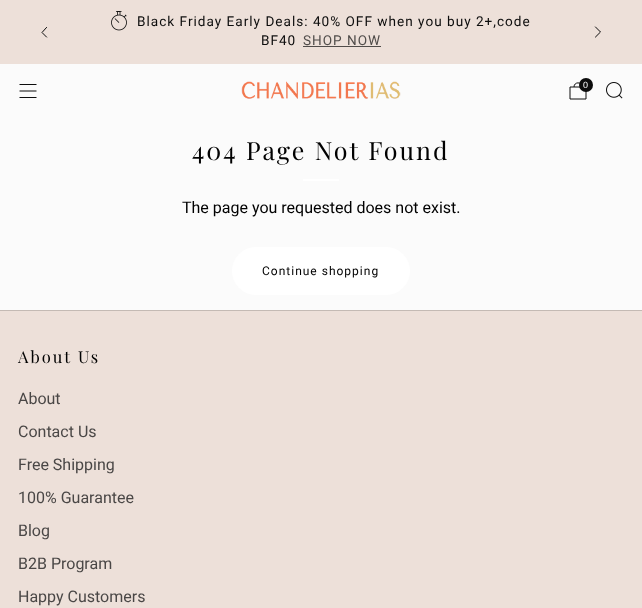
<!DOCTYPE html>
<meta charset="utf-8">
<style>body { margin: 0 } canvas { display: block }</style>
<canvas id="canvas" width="642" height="608"></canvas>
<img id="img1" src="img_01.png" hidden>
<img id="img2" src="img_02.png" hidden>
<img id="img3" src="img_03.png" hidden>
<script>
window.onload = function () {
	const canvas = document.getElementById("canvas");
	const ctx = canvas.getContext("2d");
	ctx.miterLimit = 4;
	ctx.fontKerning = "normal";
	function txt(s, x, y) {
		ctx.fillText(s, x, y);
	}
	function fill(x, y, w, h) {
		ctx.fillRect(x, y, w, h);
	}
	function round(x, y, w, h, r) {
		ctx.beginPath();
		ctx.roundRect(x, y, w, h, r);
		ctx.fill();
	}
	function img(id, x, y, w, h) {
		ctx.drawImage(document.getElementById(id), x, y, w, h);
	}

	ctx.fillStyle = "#FBFBFB";
	fill(0, 0, 642, 608);
	ctx.fillStyle = "#EDE0D9";
	fill(0, 0, 642, 64);
	ctx.beginPath();
	ctx.moveTo(46.5, 37);
	ctx.lineTo(42, 32.5);
	ctx.lineTo(46.5, 27.5);
	ctx.strokeStyle = "#0D0D0D";
	ctx.lineCap = "square";
	ctx.stroke();
	img("img1", 111, 11, 16, 20);
	ctx.fillStyle = "#504C4A";
	fill(303, 46, 78, 1);
	ctx.beginPath();
	ctx.moveTo(595.5, 27);
	ctx.lineTo(600.5, 32);
	ctx.lineTo(595.5, 37);
	ctx.stroke();
	ctx.beginPath();
	ctx.moveTo(19.5, 84.5);
	ctx.lineTo(36.5, 84.5);
	ctx.moveTo(19.5, 91);
	ctx.lineTo(36.5, 91);
	ctx.moveTo(19.5, 97.5);
	ctx.lineTo(36.5, 97.5);
	ctx.lineCap = "butt";
	ctx.stroke();
	img("img2", 241, 81, 160, 18);
	ctx.beginPath();
	ctx.moveTo(582, 87);
	ctx.bezierCurveTo(582, 81.5, 574, 81.5, 574, 87);
	ctx.moveTo(570, 87);
	ctx.lineTo(586, 87);
	ctx.lineTo(586, 99);
	ctx.lineTo(570, 99);
	ctx.closePath();
	ctx.stroke();
	ctx.fillStyle = "#0D0D0D";
	ctx.beginPath();
	ctx.arc(586, 85, 7, 0, Math.PI * 2);
	ctx.fill();
	img("img3", 606, 82, 17, 17);
	ctx.fillStyle = "#FFFFFF";
	fill(303, 179, 36, 2);
	round(232, 247, 178, 48, 24);
	ctx.fillStyle = "#EDE0D9";
	fill(0, 311, 642, 297);
	ctx.fillStyle = "#C4BAB4";
	fill(0, 310, 642, 1);
	ctx.letterSpacing = "1px";
	ctx.font = "13.6px Roboto";
	ctx.fillStyle = "#0D0D0D";
	txt("Black Friday Early Deals: 40% OFF when you buy 2+,code", 137, 26);
	txt("BF40", 261, 45);
	ctx.fillStyle = "#504C4A";
	txt("SHOP NOW", 303, 45);
	ctx.letterSpacing = "0px";
	ctx.font = "9px Liberation Sans";
	ctx.fillStyle = "#FFFFFF";
	txt("0", 583, 88);
	ctx.letterSpacing = "2px";
	ctx.font = "25px Playfair Display";
	ctx.fillStyle = "#010101";
	txt("404 Page Not Found", 192, 160);
	ctx.letterSpacing = "0px";
	ctx.font = "16px Roboto";
	txt("The page you requested does not exist.", 182, 213);
	ctx.letterSpacing = "1px";
	ctx.font = "12px Roboto";
	txt("Continue shopping", 262, 275);
	ctx.letterSpacing = "2px";
	ctx.font = "16.5px Playfair Display";
	txt("About Us", 18, 363);
	ctx.letterSpacing = "0px";
	ctx.font = "16px Roboto";
	ctx.fillStyle = "#4A4746";
	txt("About", 18, 404);
	txt("Contact Us", 18, 437);
	txt("Free Shipping", 18, 470);
	txt("100% Guarantee", 18, 503);
	txt("Blog", 18, 536);
	txt("B2B Program", 18, 569);
	txt("Happy Customers", 18, 602);
};
</script>
